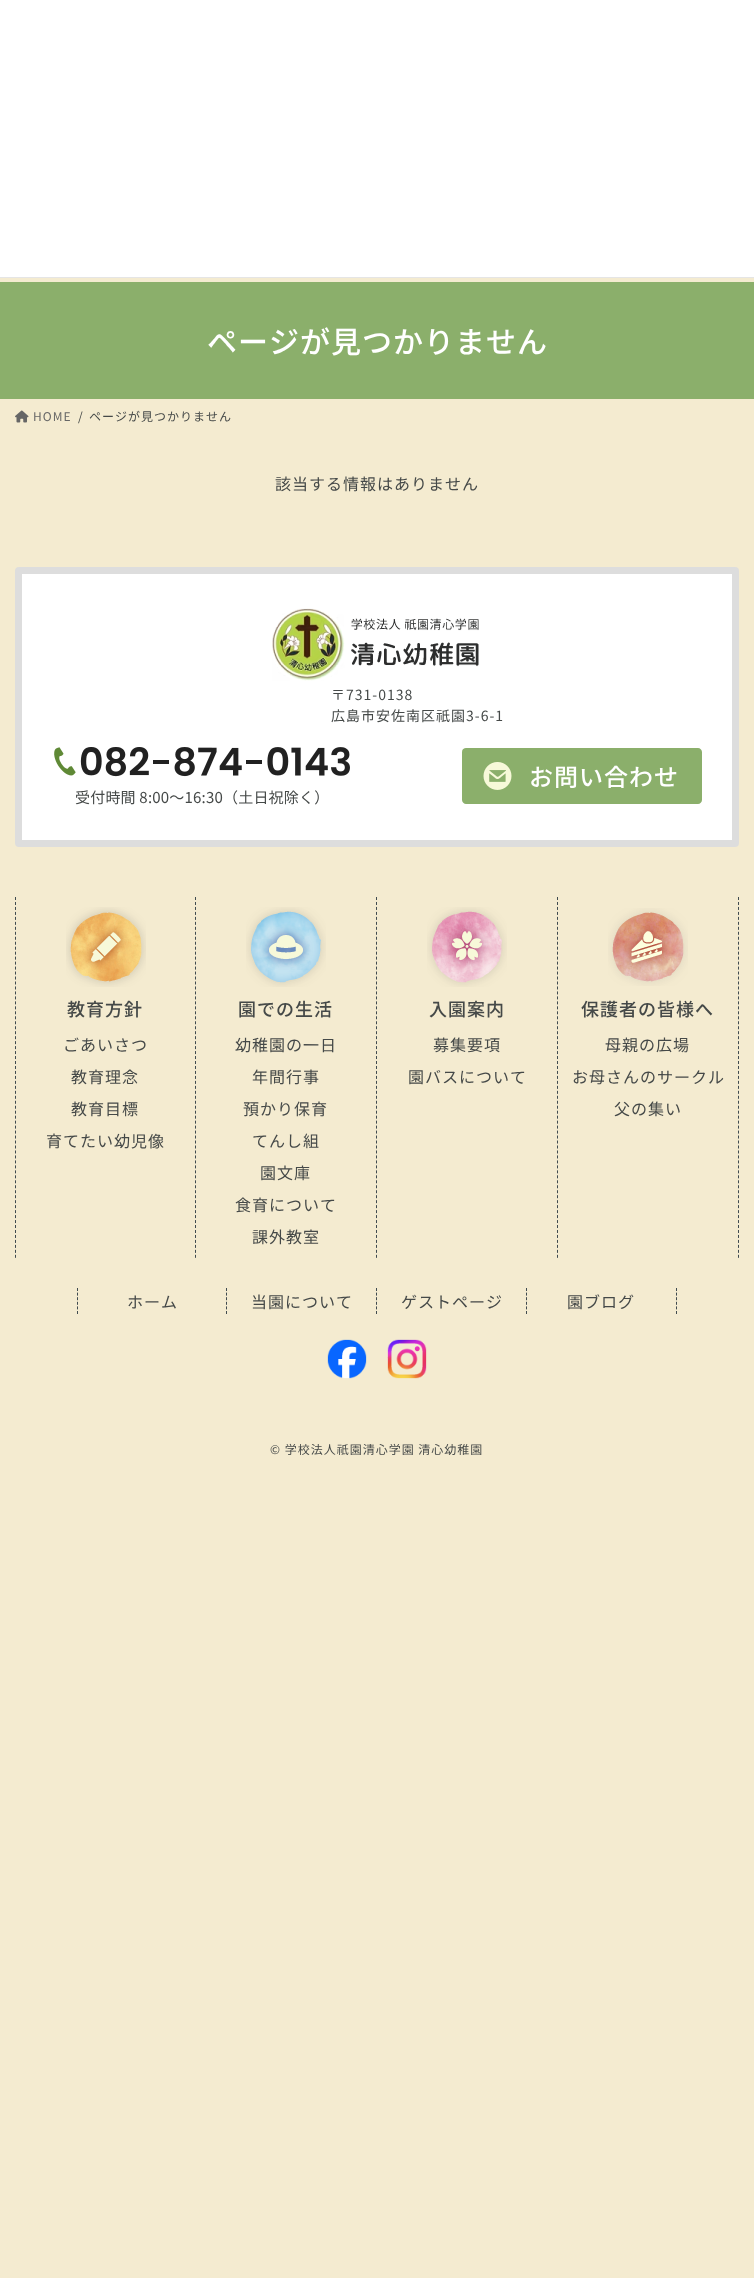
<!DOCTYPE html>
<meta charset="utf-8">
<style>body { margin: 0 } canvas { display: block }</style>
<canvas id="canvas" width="754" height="2278"></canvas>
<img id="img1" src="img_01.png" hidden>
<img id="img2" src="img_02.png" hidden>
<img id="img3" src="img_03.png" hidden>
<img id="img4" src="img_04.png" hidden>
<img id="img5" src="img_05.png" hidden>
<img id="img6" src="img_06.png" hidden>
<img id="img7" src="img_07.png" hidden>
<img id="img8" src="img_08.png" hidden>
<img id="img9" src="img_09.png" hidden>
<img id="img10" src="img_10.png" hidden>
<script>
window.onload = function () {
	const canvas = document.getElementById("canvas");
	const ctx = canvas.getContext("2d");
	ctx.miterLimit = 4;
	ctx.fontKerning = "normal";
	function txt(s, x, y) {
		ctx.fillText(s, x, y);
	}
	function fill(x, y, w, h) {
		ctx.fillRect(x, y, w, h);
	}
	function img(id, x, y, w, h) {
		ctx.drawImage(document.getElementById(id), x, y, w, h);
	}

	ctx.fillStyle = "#F4EBD0";
	fill(0, 0, 754, 2278);
	ctx.fillStyle = "#FFFFFF";
	fill(0, 0, 754, 277);
	ctx.fillStyle = "#E5E5E5";
	fill(0, 277, 754, 1);
	ctx.fillStyle = "#8BAF6B";
	fill(0, 282, 754, 117);
	img("img1", 15, 410, 14, 13);
	ctx.fillStyle = "#FFFFFF";
	ctx.beginPath();
	ctx.roundRect(18.5, 570.5, 717, 273, 0.5);
	ctx.fill();
	ctx.strokeStyle = "#DDDDDD";
	ctx.lineWidth = 7;
	ctx.stroke();
	img("img2", 272, 608, 207, 73);
	ctx.fillStyle = "#8BAF6B";
	ctx.beginPath();
	ctx.moveTo(466, 748);
	ctx.lineTo(698, 748);
	ctx.bezierCurveTo(700, 748, 702, 750, 702, 752);
	ctx.lineTo(702, 800);
	ctx.bezierCurveTo(702, 802, 700, 804, 698, 804);
	ctx.lineTo(466, 804);
	ctx.bezierCurveTo(464, 804, 462, 802, 462, 800);
	ctx.lineTo(462, 752);
	ctx.bezierCurveTo(462, 749, 464, 748, 466, 748);
	ctx.closePath();
	ctx.fill();
	img("img3", 483, 762, 29, 28);
	img("img4", 54, 747, 296, 30);
	ctx.beginPath();
	ctx.moveTo(195.5, 897);
	ctx.lineTo(195.5, 1258);
	ctx.strokeStyle = "#404B4F";
	ctx.lineWidth = 1;
	ctx.setLineDash([3, 1.97]);
	ctx.stroke();
	ctx.beginPath();
	ctx.moveTo(15.5, 897);
	ctx.lineTo(15.5, 1258);
	ctx.stroke();
	img("img5", 66, 907, 80, 80);
	ctx.beginPath();
	ctx.moveTo(376.5, 897);
	ctx.lineTo(376.5, 1258);
	ctx.stroke();
	img("img6", 246, 907, 80, 80);
	ctx.beginPath();
	ctx.moveTo(557.5, 897);
	ctx.lineTo(557.5, 1258);
	ctx.stroke();
	img("img7", 427, 907, 80, 80);
	ctx.beginPath();
	ctx.moveTo(738.5, 897);
	ctx.lineTo(738.5, 1258);
	ctx.stroke();
	img("img8", 608, 908, 80, 78);
	ctx.beginPath();
	ctx.moveTo(226.5, 1288);
	ctx.lineTo(226.5, 1314);
	ctx.setLineDash([3, 1.6]);
	ctx.stroke();
	ctx.beginPath();
	ctx.moveTo(77.5, 1288);
	ctx.lineTo(77.5, 1314);
	ctx.stroke();
	ctx.beginPath();
	ctx.moveTo(376.5, 1288);
	ctx.lineTo(376.5, 1314);
	ctx.stroke();
	ctx.beginPath();
	ctx.moveTo(526.5, 1288);
	ctx.lineTo(526.5, 1314);
	ctx.stroke();
	ctx.beginPath();
	ctx.moveTo(676.5, 1288);
	ctx.lineTo(676.5, 1314);
	ctx.stroke();
	img("img9", 327, 1339, 40, 40);
	img("img10", 387, 1339, 40, 40);
	ctx.letterSpacing = "1px";
	ctx.font = "500 30px Noto Sans JP";
	ctx.fillStyle = "#FFFFFF";
	txt("ページが見つかりません", 207, 353);
	ctx.font = "12px Noto Sans JP";
	ctx.fillStyle = "#666666";
	txt("HOME", 33, 421);
	ctx.fillStyle = "#454948";
	txt("/", 78, 421);
	txt("ページが見つかりません", 89, 421);
	ctx.font = "16px Noto Sans JP";
	txt("該当する情報はありません", 275, 490);
	ctx.font = "14px Noto Sans JP";
	txt("〒731-0138", 331, 700);
	txt("広島市安佐南区祇園3-6-1", 331, 721);
	ctx.font = "500 24px Noto Sans JP";
	ctx.fillStyle = "#FFFFFF";
	txt("お問い合わせ", 529, 786);
	ctx.letterSpacing = "0.2px";
	ctx.font = "15px Noto Sans JP";
	ctx.fillStyle = "#454948";
	txt("受付時間 8:00～16:30（土日祝除く）", 75, 803);
	ctx.letterSpacing = "1px";
	ctx.font = "500 18px Noto Sans JP";
	txt("教育方針", 67, 1016);
	ctx.font = "16px Noto Sans JP";
	ctx.save();
	ctx.translate(63, 1051);
	ctx.rotate(0.1 * Math.PI / 180);
	ctx.fillText("ごあいさつ", 0, 0);
	ctx.restore();
	ctx.save();
	ctx.translate(71, 1083);
	ctx.rotate(0.1 * Math.PI / 180);
	ctx.fillText("教育理念", 0, 0);
	ctx.restore();
	ctx.save();
	ctx.translate(71, 1115);
	ctx.rotate(0.1 * Math.PI / 180);
	ctx.fillText("教育目標", 0, 0);
	ctx.restore();
	ctx.save();
	ctx.translate(46, 1147);
	ctx.rotate(0.1 * Math.PI / 180);
	ctx.fillText("育てたい幼児像", 0, 0);
	ctx.restore();
	ctx.font = "500 18px Noto Sans JP";
	txt("園での生活", 238, 1016);
	ctx.font = "16px Noto Sans JP";
	ctx.save();
	ctx.translate(235, 1051);
	ctx.rotate(0.1 * Math.PI / 180);
	ctx.fillText("幼稚園の一日", 0, 0);
	ctx.restore();
	ctx.save();
	ctx.translate(252, 1083);
	ctx.rotate(0.1 * Math.PI / 180);
	ctx.fillText("年間行事", 0, 0);
	ctx.restore();
	ctx.save();
	ctx.translate(243, 1115);
	ctx.rotate(0.1 * Math.PI / 180);
	ctx.fillText("預かり保育", 0, 0);
	ctx.restore();
	ctx.save();
	ctx.translate(252, 1147);
	ctx.rotate(0.1 * Math.PI / 180);
	ctx.fillText("てんし組", 0, 0);
	ctx.restore();
	ctx.save();
	ctx.translate(260, 1179);
	ctx.rotate(0.1 * Math.PI / 180);
	ctx.fillText("園文庫", 0, 0);
	ctx.restore();
	ctx.save();
	ctx.translate(235, 1211);
	ctx.rotate(0.1 * Math.PI / 180);
	ctx.fillText("食育について", 0, 0);
	ctx.restore();
	ctx.save();
	ctx.translate(252, 1243);
	ctx.rotate(0.1 * Math.PI / 180);
	ctx.fillText("課外教室", 0, 0);
	ctx.restore();
	ctx.font = "500 18px Noto Sans JP";
	txt("入園案内", 429, 1016);
	ctx.font = "16px Noto Sans JP";
	ctx.save();
	ctx.translate(433, 1051);
	ctx.rotate(0.1 * Math.PI / 180);
	ctx.fillText("募集要項", 0, 0);
	ctx.restore();
	ctx.save();
	ctx.translate(408, 1083);
	ctx.rotate(0.1 * Math.PI / 180);
	ctx.fillText("園バスについて", 0, 0);
	ctx.restore();
	ctx.font = "500 18px Noto Sans JP";
	txt("保護者の皆様へ", 581, 1016);
	ctx.font = "16px Noto Sans JP";
	ctx.save();
	ctx.translate(605, 1051);
	ctx.rotate(0.1 * Math.PI / 180);
	ctx.fillText("母親の広場", 0, 0);
	ctx.restore();
	ctx.save();
	ctx.translate(572, 1083);
	ctx.rotate(0.1 * Math.PI / 180);
	ctx.fillText("お母さんのサークル", 0, 0);
	ctx.restore();
	ctx.save();
	ctx.translate(614, 1115);
	ctx.rotate(0.1 * Math.PI / 180);
	ctx.fillText("父の集い", 0, 0);
	ctx.restore();
	txt("ホーム", 127, 1308);
	txt("当園について", 251, 1308);
	txt("ゲストページ", 401, 1308);
	txt("園ブログ", 567, 1308);
	ctx.font = "12px Noto Sans JP";
	txt("© 学校法人祇園清心学園 清心幼稚園", 270, 1454);
};
</script>
